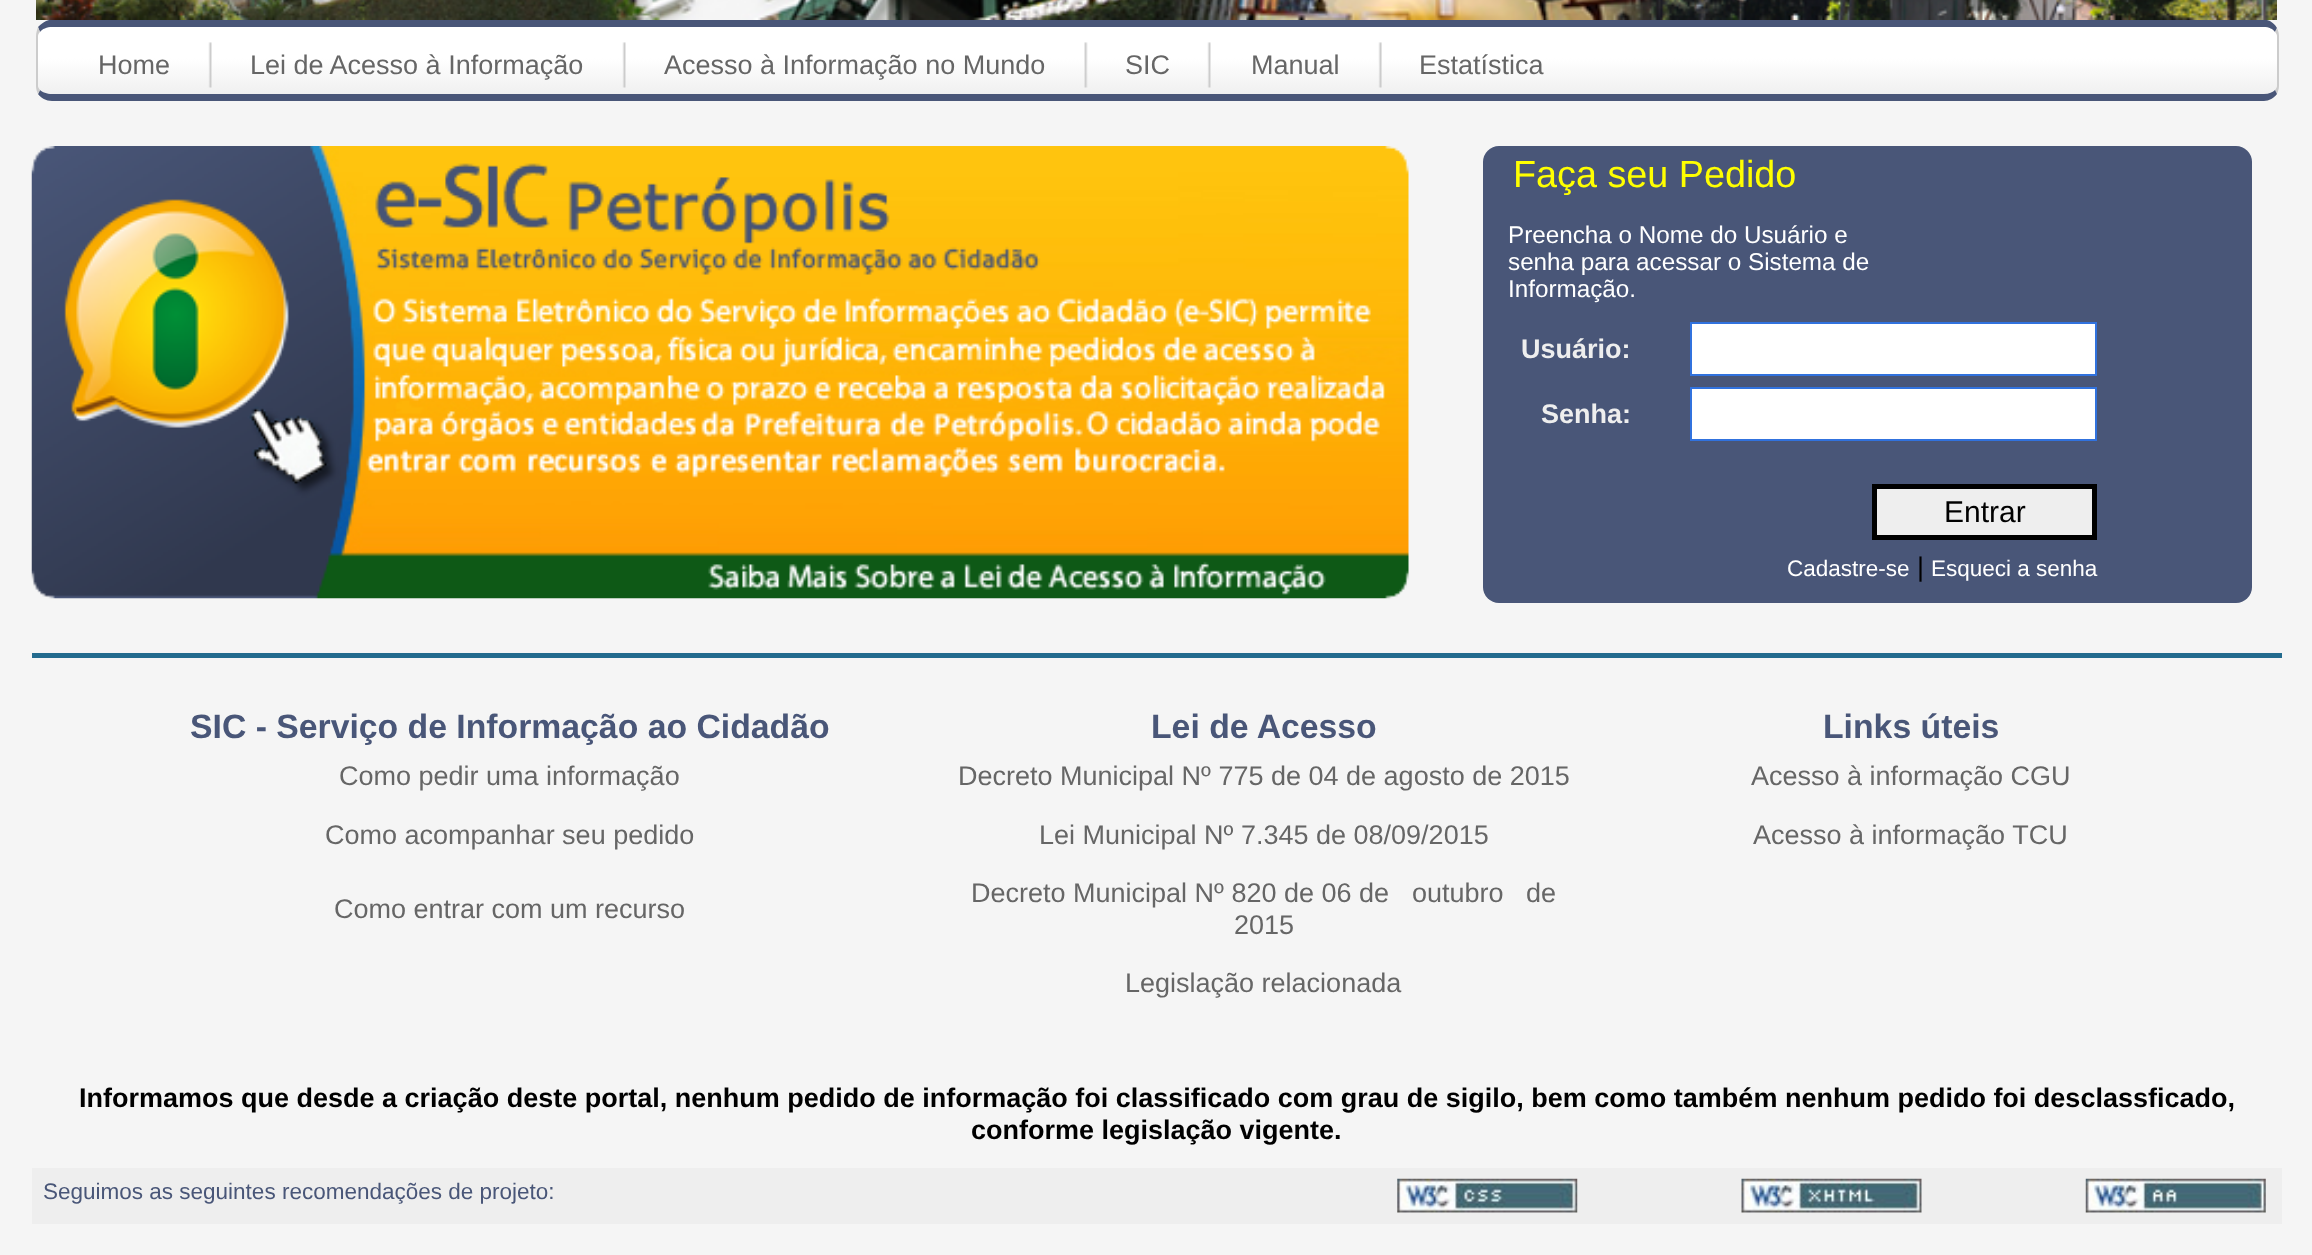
<!DOCTYPE html>
<meta charset="utf-8">
<style>body { margin: 0 } canvas { display: block }</style>
<canvas id="canvas" width="2312" height="1255"></canvas>
<img id="img1" src="img_01.png" hidden>
<img id="img2" src="img_02.png" hidden>
<img id="img3" src="img_03.png" hidden>
<img id="img4" src="img_04.png" hidden>
<img id="img5" src="img_05.png" hidden>
<img id="img6" src="img_06.png" hidden>
<img id="img7" src="img_07.png" hidden>
<img id="img8" src="img_08.png" hidden>
<script>
window.onload = function () {
	const canvas = document.getElementById("canvas");
	const ctx = canvas.getContext("2d");
	ctx.miterLimit = 4;
	ctx.fontKerning = "normal";
	function txt(s, x, y) {
		ctx.fillText(s, x, y);
	}
	function fill(x, y, w, h) {
		ctx.fillRect(x, y, w, h);
	}
	function round(x, y, w, h, r) {
		ctx.beginPath();
		ctx.roundRect(x, y, w, h, r);
		ctx.fill();
	}
	function img(id, x, y, w, h) {
		ctx.drawImage(document.getElementById(id), x, y, w, h);
	}
	let gradient;

	ctx.fillStyle = "#F5F5F5";
	fill(0, 0, 2312, 1255);
	img("img1", 36, 0, 2241, 20);
	gradient = ctx.createLinearGradient(1158, 27, 1158, 95);
	gradient.addColorStop(0.46, "#FFFFFF");
	gradient.addColorStop(0.98, "#F0F0F0");
	gradient.addColorStop(1, "#F0F0F0");
	ctx.fillStyle = gradient;
	ctx.beginPath();
	ctx.moveTo(52, 27);
	ctx.lineTo(2264, 27);
	ctx.bezierCurveTo(2271, 27, 2277, 31, 2277, 36);
	ctx.lineTo(2277, 86);
	ctx.bezierCurveTo(2277, 90, 2271, 94, 2264, 94);
	ctx.lineTo(52, 94);
	ctx.bezierCurveTo(44, 94, 38, 90, 38, 86);
	ctx.lineTo(38, 36);
	ctx.bezierCurveTo(38, 31, 44, 27, 52, 27);
	ctx.closePath();
	ctx.fill();
	ctx.fillStyle = "#495678";
	ctx.beginPath();
	ctx.moveTo(52, 27);
	ctx.bezierCurveTo(47, 27, 42, 29, 40, 32);
	ctx.lineTo(38, 27);
	ctx.bezierCurveTo(41, 24, 45, 21, 49, 20);
	ctx.lineTo(2267, 20);
	ctx.bezierCurveTo(2271, 21, 2275, 24, 2277, 28);
	ctx.lineTo(2275, 32);
	ctx.bezierCurveTo(2273, 29, 2269, 27, 2264, 27);
	ctx.closePath();
	ctx.fill();
	ctx.fillStyle = "#CCCCCC";
	ctx.beginPath();
	ctx.moveTo(2277, 28);
	ctx.bezierCurveTo(2278, 30, 2279, 33, 2279, 36);
	ctx.lineTo(2279, 86);
	ctx.bezierCurveTo(2279, 89, 2278, 91, 2277, 94);
	ctx.lineTo(2275, 90);
	ctx.bezierCurveTo(2276, 89, 2277, 87, 2277, 86);
	ctx.lineTo(2277, 36);
	ctx.bezierCurveTo(2277, 34, 2276, 33, 2275, 32);
	ctx.closePath();
	ctx.fill();
	ctx.fillStyle = "#495678";
	ctx.beginPath();
	ctx.moveTo(2277, 94);
	ctx.bezierCurveTo(2274, 98, 2269, 101, 2264, 101);
	ctx.lineTo(52, 101);
	ctx.bezierCurveTo(46, 101, 41, 98, 38, 94);
	ctx.lineTo(40, 90);
	ctx.bezierCurveTo(42, 92, 47, 94, 52, 94);
	ctx.lineTo(2264, 94);
	ctx.bezierCurveTo(2269, 94, 2273, 92, 2275, 90);
	ctx.closePath();
	ctx.fill();
	ctx.fillStyle = "#CCCCCC";
	ctx.beginPath();
	ctx.moveTo(36, 36);
	ctx.lineTo(36, 86);
	ctx.bezierCurveTo(36, 89, 37, 92, 38, 94);
	ctx.lineTo(40, 90);
	ctx.bezierCurveTo(39, 89, 38, 87, 38, 86);
	ctx.lineTo(38, 36);
	ctx.bezierCurveTo(38, 34, 39, 33, 40, 32);
	ctx.lineTo(38, 27);
	ctx.bezierCurveTo(37, 30, 36, 33, 36, 36);
	ctx.closePath();
	ctx.fill();
	img("img2", 208, 42, 4, 46);
	img("img2", 622, 42, 4, 46);
	img("img3", 1084, 42, 4, 46);
	img("img2", 1207, 42, 4, 46);
	img("img4", 1378, 42, 4, 46);
	img("img5", 31, 146, 1378, 453);
	ctx.fillStyle = "#495678";
	round(1483, 146, 769, 457, 16);
	ctx.fillStyle = "#FFFFFF";
	ctx.beginPath();
	ctx.rect(1691, 323, 405, 52);
	ctx.fill();
	ctx.strokeStyle = "#3172DE";
	ctx.lineWidth = 2;
	ctx.stroke();
	ctx.beginPath();
	ctx.rect(1691, 388, 405, 52);
	ctx.fill();
	ctx.stroke();
	ctx.fillStyle = "#EEEEEE";
	ctx.beginPath();
	ctx.rect(1874.5, 486.5, 220, 51);
	ctx.fill();
	ctx.strokeStyle = "#000000";
	ctx.lineWidth = 5;
	ctx.stroke();
	ctx.fillStyle = "#236B8E";
	fill(32, 653, 2250, 5);
	ctx.fillStyle = "#EEEEEE";
	fill(32, 1168, 2250, 56);
	img("img6", 1397, 1178, 181, 35);
	img("img7", 1741, 1178, 181, 35);
	img("img8", 2085, 1178, 181, 35);
	ctx.font = "27px Liberation Sans";
	ctx.fillStyle = "#666666";
	txt("Home", 98, 74);
	txt("Lei de Acesso à Informação", 250, 74);
	txt("Acesso à Informação no Mundo", 664, 74);
	txt("SIC", 1125, 74);
	txt("Manual", 1251, 74);
	txt("Estatística", 1419, 74);
	ctx.font = "37.75px Liberation Sans";
	ctx.fillStyle = "#FFFF00";
	txt("Faça seu Pedido", 1513, 187);
	ctx.font = "24.25px Liberation Sans";
	ctx.fillStyle = "#FFFFFF";
	txt("Preencha o Nome do Usuário e", 1508, 243);
	txt("senha para acessar o Sistema de", 1508, 270);
	txt("Informação.", 1508, 297);
	ctx.font = "bold 27px Liberation Sans";
	ctx.fillStyle = "#EEEEEE";
	txt("Usuário:", 1521, 358);
	txt("Senha:", 1541, 423);
	ctx.font = "30px Liberation Sans";
	ctx.fillStyle = "#000000";
	txt("Entrar", 1944, 522);
	ctx.font = "22.5px Liberation Sans";
	ctx.fillStyle = "#FFFFFF";
	txt("Cadastre-se", 1787, 576);
	ctx.font = "27px Liberation Sans";
	ctx.fillStyle = "#000000";
	txt("|", 1917, 576);
	ctx.font = "22.5px Liberation Sans";
	ctx.fillStyle = "#FFFFFF";
	txt("Esqueci a senha", 1931, 576);
	ctx.font = "bold 33.75px Liberation Sans";
	ctx.fillStyle = "#495678";
	txt("SIC - Serviço de Informação ao Cidadão", 190, 738);
	txt("Lei de Acesso", 1151, 738);
	txt("Links úteis", 1823, 738);
	ctx.font = "27px Liberation Sans";
	ctx.fillStyle = "#666666";
	txt("Como pedir uma informação", 339, 785);
	txt("Decreto Municipal Nº 775 de 04 de agosto de 2015", 958, 785);
	txt("Acesso à informação CGU", 1751, 785);
	txt("Como acompanhar seu pedido", 325, 844);
	txt("Lei Municipal Nº 7.345 de 08/09/2015", 1039, 844);
	txt("Acesso à informação TCU", 1753, 844);
	txt("Como entrar com um recurso", 334, 918);
	txt("Decreto Municipal Nº 820 de 06 de", 971, 902);
	txt("outubro   de", 1412, 902);
	txt("2015", 1234, 934);
	txt("Legislação relacionada", 1125, 992);
	ctx.font = "bold 27px Liberation Sans";
	ctx.fillStyle = "#000000";
	txt("Informamos que desde a criação deste portal, nenhum pedido de informação foi classificado com grau de sigilo, bem como também nenhum pedido foi desclassficado,", 79, 1107);
	txt("conforme legislação vigente.", 971, 1139);
	ctx.font = "22.5px Liberation Sans";
	ctx.fillStyle = "#495678";
	txt("Seguimos as seguintes recomendações de projeto:", 43, 1199);
};
</script>
